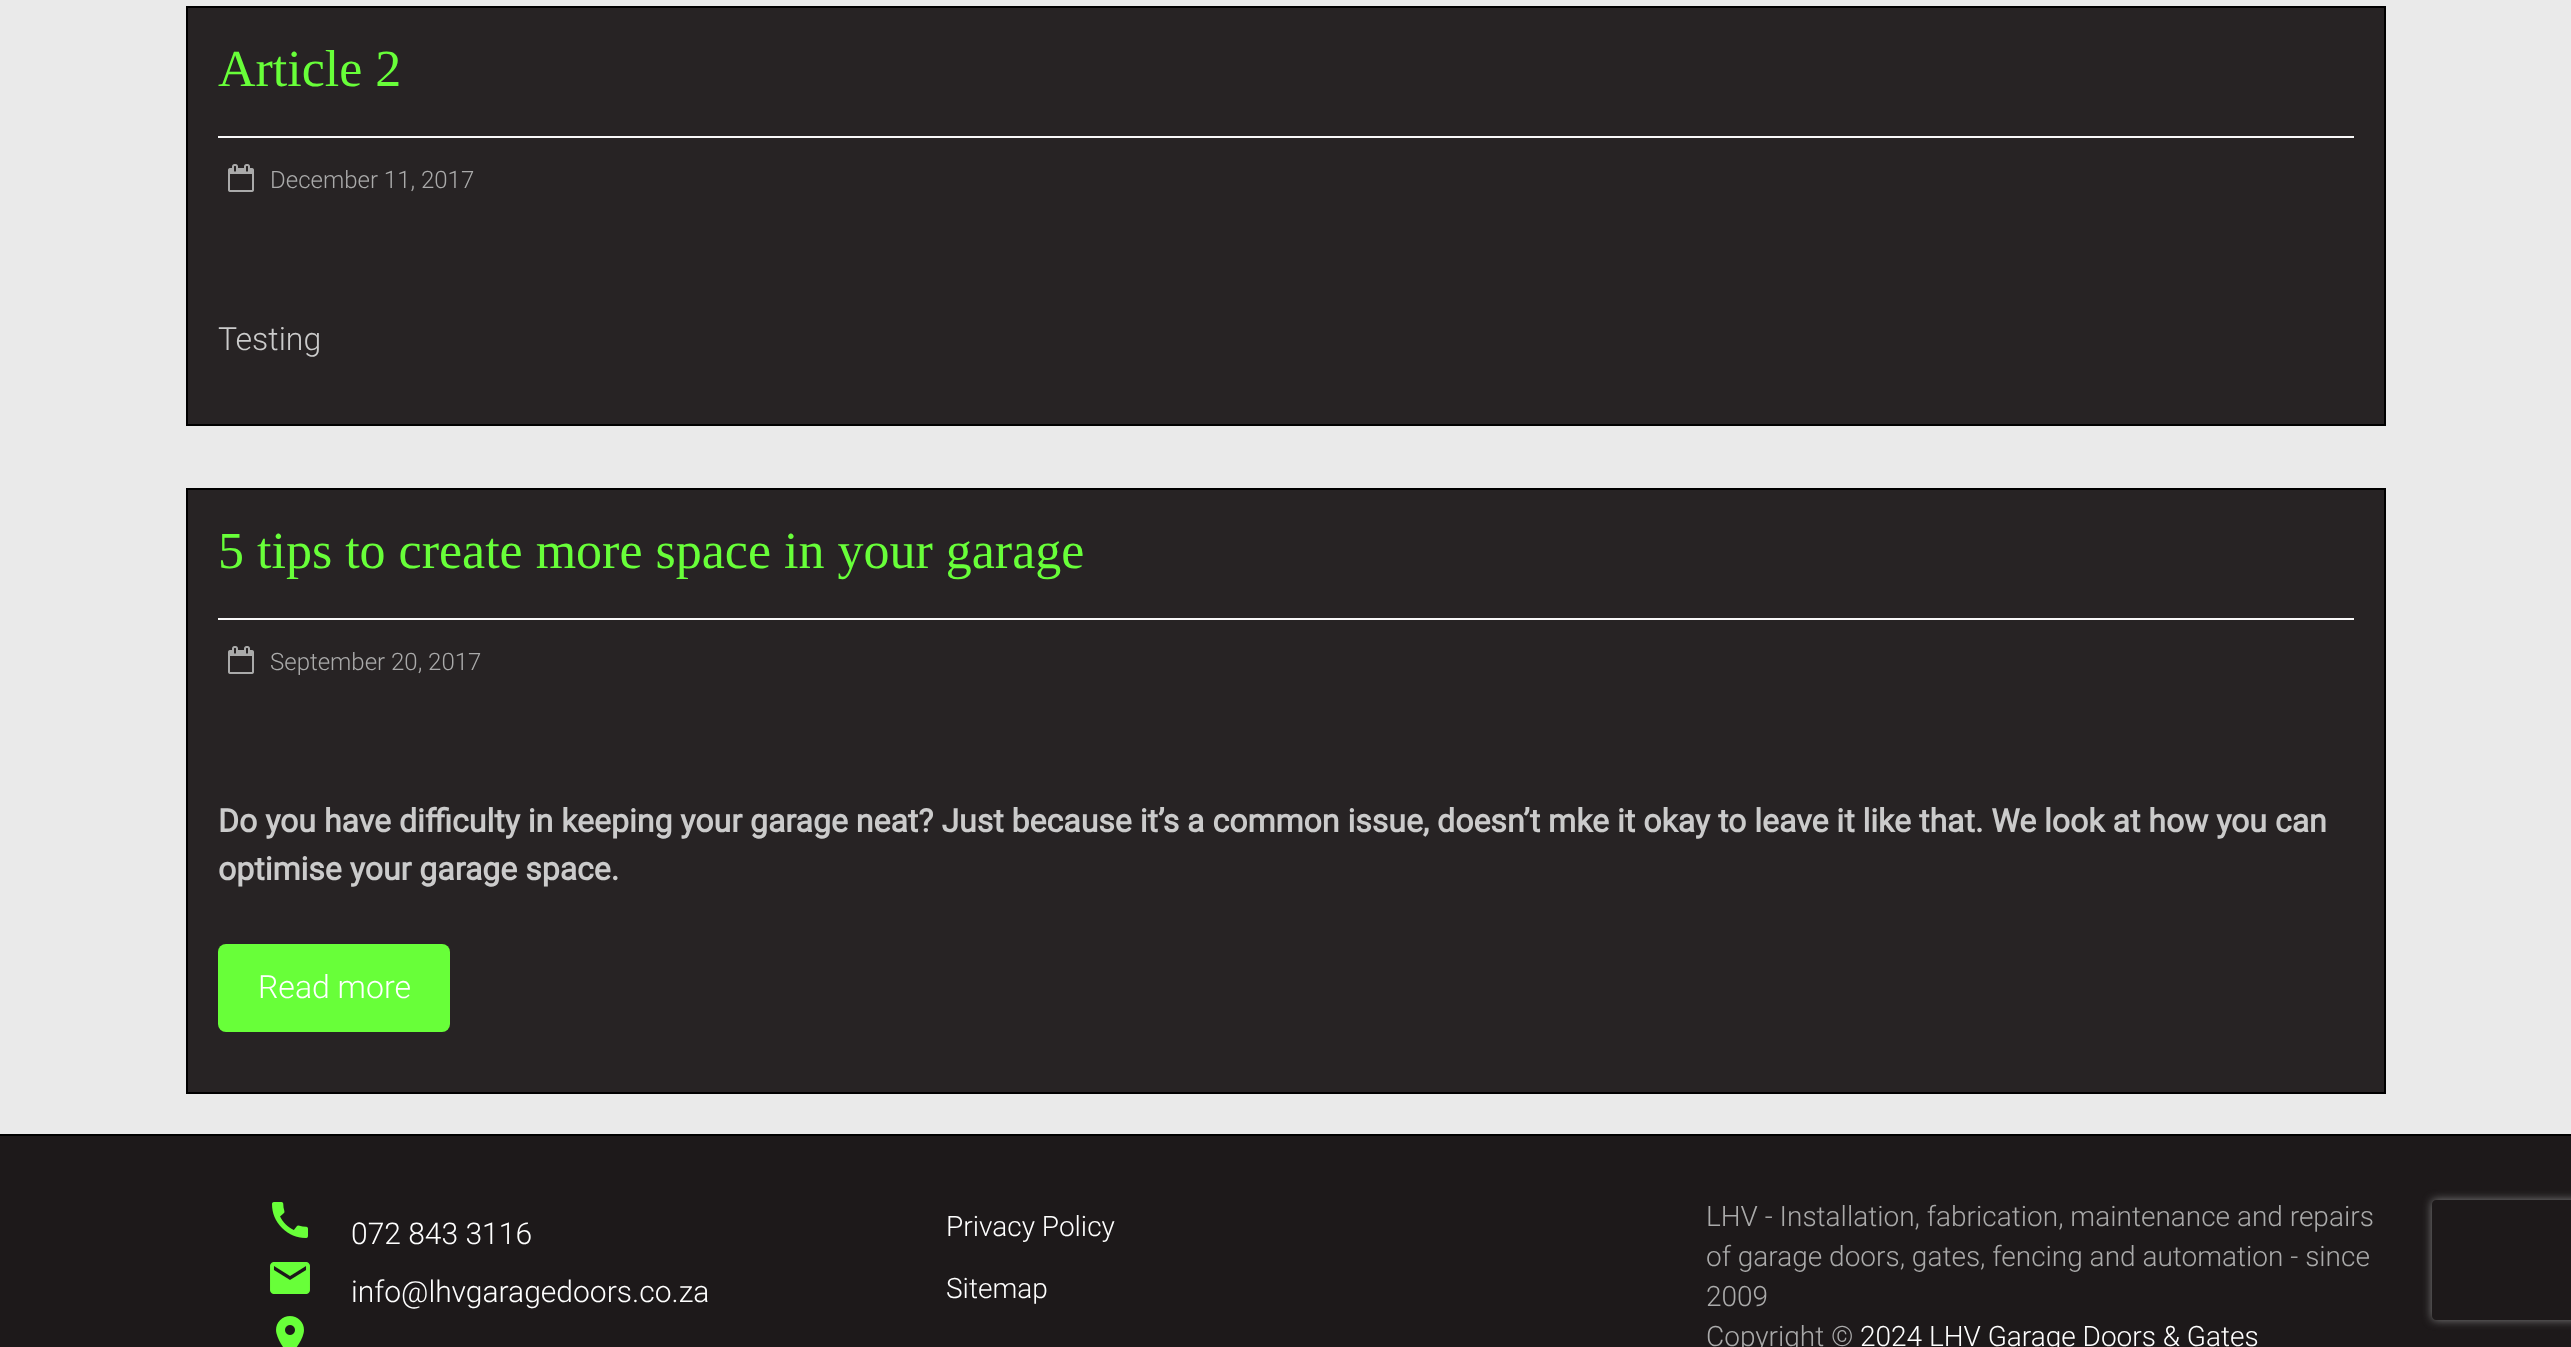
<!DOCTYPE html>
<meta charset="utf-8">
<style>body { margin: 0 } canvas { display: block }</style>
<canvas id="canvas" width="2571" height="1347"></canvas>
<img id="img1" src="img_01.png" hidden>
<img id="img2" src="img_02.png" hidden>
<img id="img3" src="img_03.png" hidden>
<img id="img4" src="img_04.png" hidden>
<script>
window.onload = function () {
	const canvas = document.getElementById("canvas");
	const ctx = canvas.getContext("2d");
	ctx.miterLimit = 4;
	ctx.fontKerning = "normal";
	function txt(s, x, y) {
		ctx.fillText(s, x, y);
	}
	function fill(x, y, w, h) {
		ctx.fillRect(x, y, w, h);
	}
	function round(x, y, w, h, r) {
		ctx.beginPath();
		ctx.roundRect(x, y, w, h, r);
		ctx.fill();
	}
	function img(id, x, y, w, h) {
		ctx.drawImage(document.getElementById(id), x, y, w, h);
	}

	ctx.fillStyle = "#EAEAEA";
	fill(0, 0, 2571, 1347);
	ctx.fillStyle = "#272324";
	ctx.beginPath();
	ctx.rect(187, 7, 2198, 418);
	ctx.fill();
	ctx.strokeStyle = "#000000";
	ctx.lineWidth = 2;
	ctx.stroke();
	ctx.fillStyle = "#F8F8F8";
	fill(218, 136, 2136, 2);
	img("img1", 228, 164, 26, 28);
	ctx.fillStyle = "#272324";
	ctx.beginPath();
	ctx.rect(187, 489, 2198, 604);
	ctx.fill();
	ctx.stroke();
	ctx.fillStyle = "#F8F8F8";
	fill(218, 618, 2136, 2);
	img("img1", 228, 646, 26, 28);
	ctx.fillStyle = "#68FF39";
	round(218, 944, 232, 88, 8);
	ctx.fillStyle = "#1D191A";
	fill(0, 1136, 2571, 211);
	ctx.fillStyle = "#000000";
	fill(0, 1134, 2571, 2);
	img("img2", 272, 1202, 36, 36);
	img("img3", 270, 1262, 40, 32);
	img("img4", 276, 1316, 28, 31);
	ctx.save();
	ctx.beginPath();
	ctx.moveTo(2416, 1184);
	ctx.lineTo(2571, 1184);
	ctx.lineTo(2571, 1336);
	ctx.lineTo(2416, 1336);
	ctx.closePath();
	ctx.moveTo(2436, 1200);
	ctx.lineTo(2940, 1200);
	ctx.bezierCurveTo(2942, 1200, 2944, 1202, 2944, 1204);
	ctx.lineTo(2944, 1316);
	ctx.bezierCurveTo(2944, 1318, 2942, 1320, 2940, 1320);
	ctx.lineTo(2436, 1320);
	ctx.bezierCurveTo(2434, 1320, 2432, 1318, 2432, 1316);
	ctx.lineTo(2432, 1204);
	ctx.bezierCurveTo(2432, 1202, 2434, 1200, 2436, 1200);
	ctx.closePath();
	ctx.clip("evenodd");
	ctx.fillStyle = "#808080";
	ctx.filter = "blur(5px)";
	ctx.beginPath();
	ctx.roundRect(2432, 1200, 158, 120, 4);
	ctx.fill();
	ctx.filter = "none";
	ctx.restore();
	ctx.font = "52px Liberation Serif";
	ctx.fillStyle = "#68FF39";
	txt("Article 2", 218, 86);
	ctx.font = "300 24px Roboto";
	ctx.fillStyle = "#AAAAAA";
	txt("December 11, 2017", 270, 188);
	ctx.font = "300 32px Roboto";
	ctx.fillStyle = "#CBCBCB";
	txt("Testing", 218, 350);
	ctx.font = "52px Liberation Serif";
	ctx.fillStyle = "#68FF39";
	txt("5 tips to create more space in your garage", 218, 568);
	ctx.font = "300 24px Roboto";
	ctx.fillStyle = "#AAAAAA";
	txt("September 20, 2017", 270, 670);
	ctx.font = "bold 32px Roboto";
	ctx.fillStyle = "#CBCBCB";
	txt("Do you have difficulty in keeping your garage neat? Just because it’s a common issue, doesn’t mke it okay to leave it like that. We look at how you can", 218, 832);
	txt("optimise your garage space.", 218, 880);
	ctx.font = "300 32px Roboto";
	ctx.fillStyle = "#FFFFFF";
	txt("Read more", 258, 998);
	ctx.font = "300 30px Roboto";
	txt("072 843 3116", 351, 1244);
	txt("info@lhvgaragedoors.co.za", 351, 1302);
	ctx.font = "300 28px Roboto";
	txt("Privacy Policy", 946, 1236);
	txt("Sitemap", 946, 1298);
	ctx.fillStyle = "#AAAAAA";
	txt("LHV - Installation, fabrication, maintenance and repairs", 1706, 1226);
	txt("of garage doors, gates, fencing and automation - since", 1706, 1266);
	txt("2009", 1706, 1306);
	txt("Copyright ©", 1706, 1346);
	ctx.fillStyle = "#FFFFFF";
	txt("2024 LHV Garage Doors & Gates", 1860, 1346);
};
</script>
